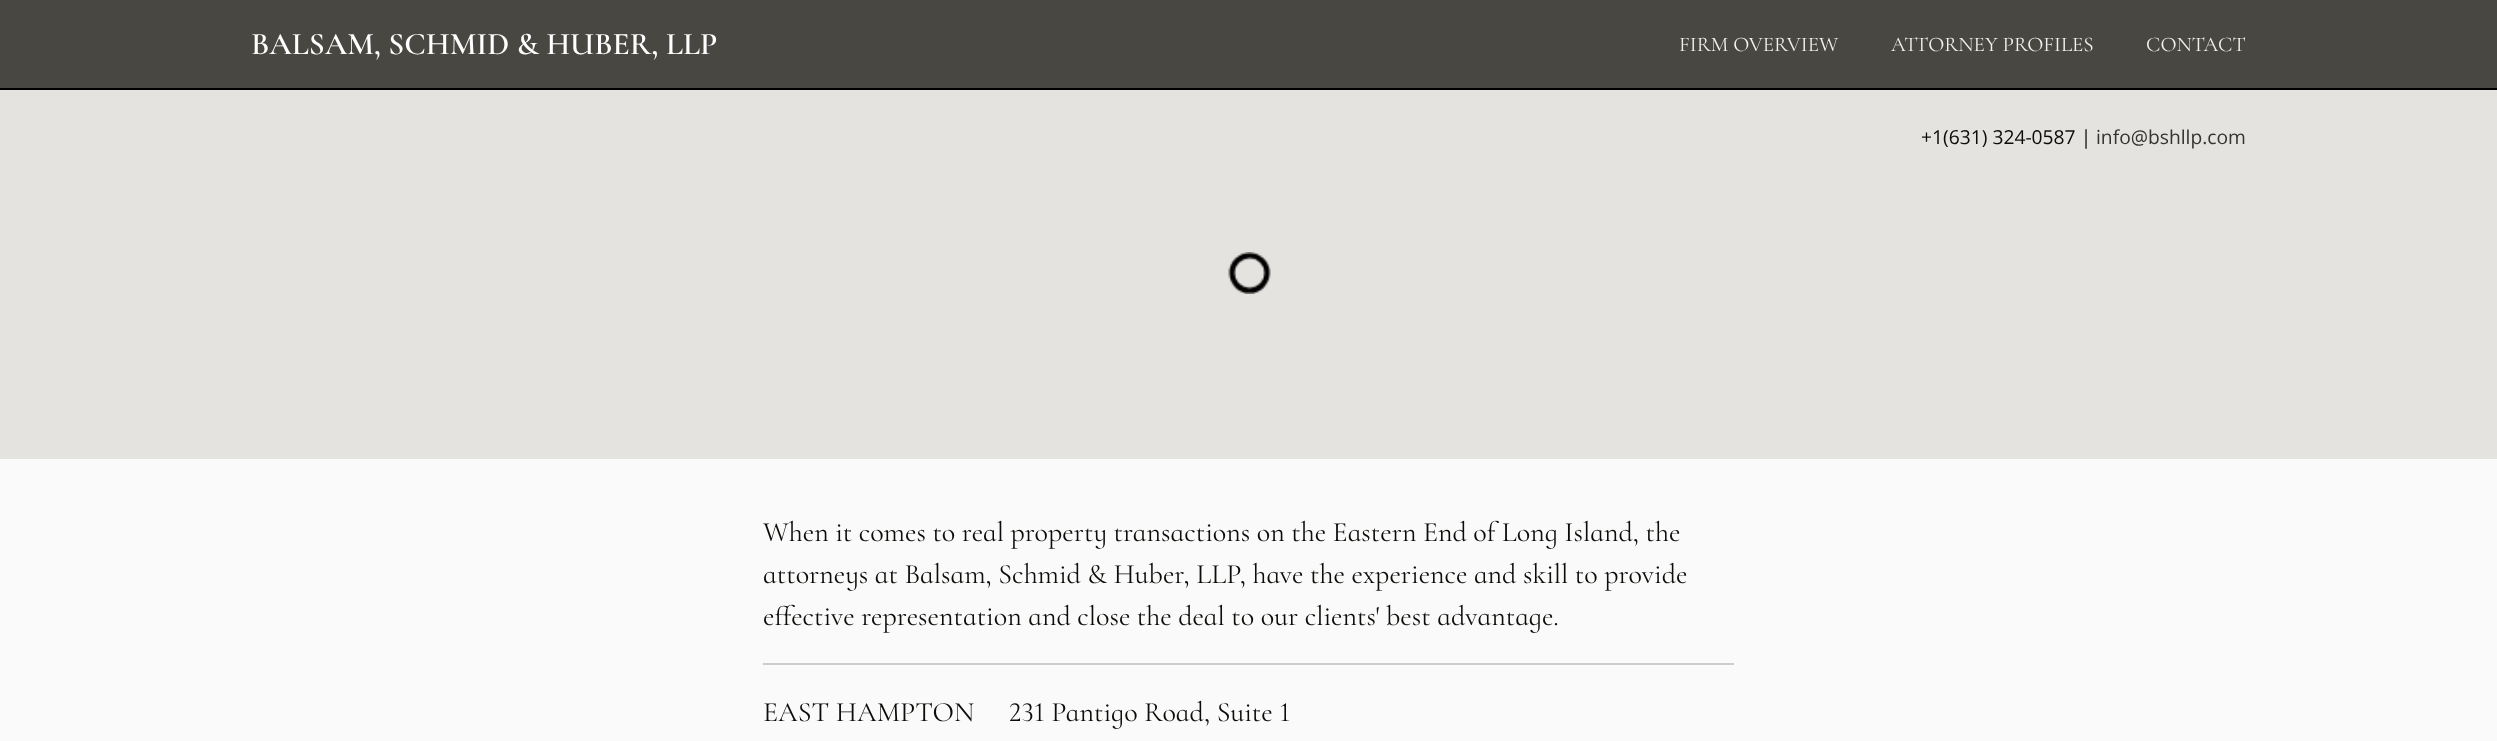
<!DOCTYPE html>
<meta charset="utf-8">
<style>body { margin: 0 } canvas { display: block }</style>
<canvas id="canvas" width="2497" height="741"></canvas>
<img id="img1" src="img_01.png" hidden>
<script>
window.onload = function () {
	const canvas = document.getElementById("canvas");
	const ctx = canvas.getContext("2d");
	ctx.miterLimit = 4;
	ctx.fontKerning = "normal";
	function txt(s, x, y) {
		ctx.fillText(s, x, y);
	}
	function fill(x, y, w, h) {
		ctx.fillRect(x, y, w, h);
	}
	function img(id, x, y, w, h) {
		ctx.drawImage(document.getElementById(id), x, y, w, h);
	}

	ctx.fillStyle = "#FAFAFA";
	fill(0, 0, 2497, 741);
	ctx.fillStyle = "#484742";
	fill(0, 0, 2497, 88);
	ctx.fillStyle = "#000000";
	fill(0, 88, 2497, 2);
	ctx.fillStyle = "#E5E3DF";
	fill(0, 90, 2497, 369);
	img("img1", 1228, 252, 43, 42);
	ctx.fillStyle = "#CCCDCC";
	fill(763, 663, 971, 2);
	ctx.font = "600 31.5px Cormorant Infant";
	ctx.fillStyle = "#FFFFFF";
	txt("BALSAM, SCHMID & HUBER, LLP", 251, 54);
	ctx.font = "21px Cormorant Infant";
	ctx.fillStyle = "#F1F1F1";
	txt("FIRM OVERVIEW", 1679, 51);
	txt("ATTORNEY PROFILES", 1891, 51);
	txt("CONTACT", 2146, 51);
	ctx.font = "19.25px Open Sans";
	ctx.fillStyle = "#0D0C09";
	txt("+1(631) 324-0587 |", 1921, 144);
	ctx.fillStyle = "#333433";
	txt("info@bshllp.com", 2096, 144);
	ctx.font = "28px Cormorant Infant";
	ctx.fillStyle = "#0D0C09";
	txt("When it comes to real property transactions on the Eastern End of Long Island, the", 763, 541);
	txt("attorneys at Balsam, Schmid & Huber, LLP, have the experience and skill to provide", 763, 583);
	txt("effective representation and close the deal to our clients' best advantage.", 763, 625);
	txt("EAST HAMPTON", 763, 721);
	txt("231 Pantigo Road, Suite 1", 1009, 721);
};
</script>
